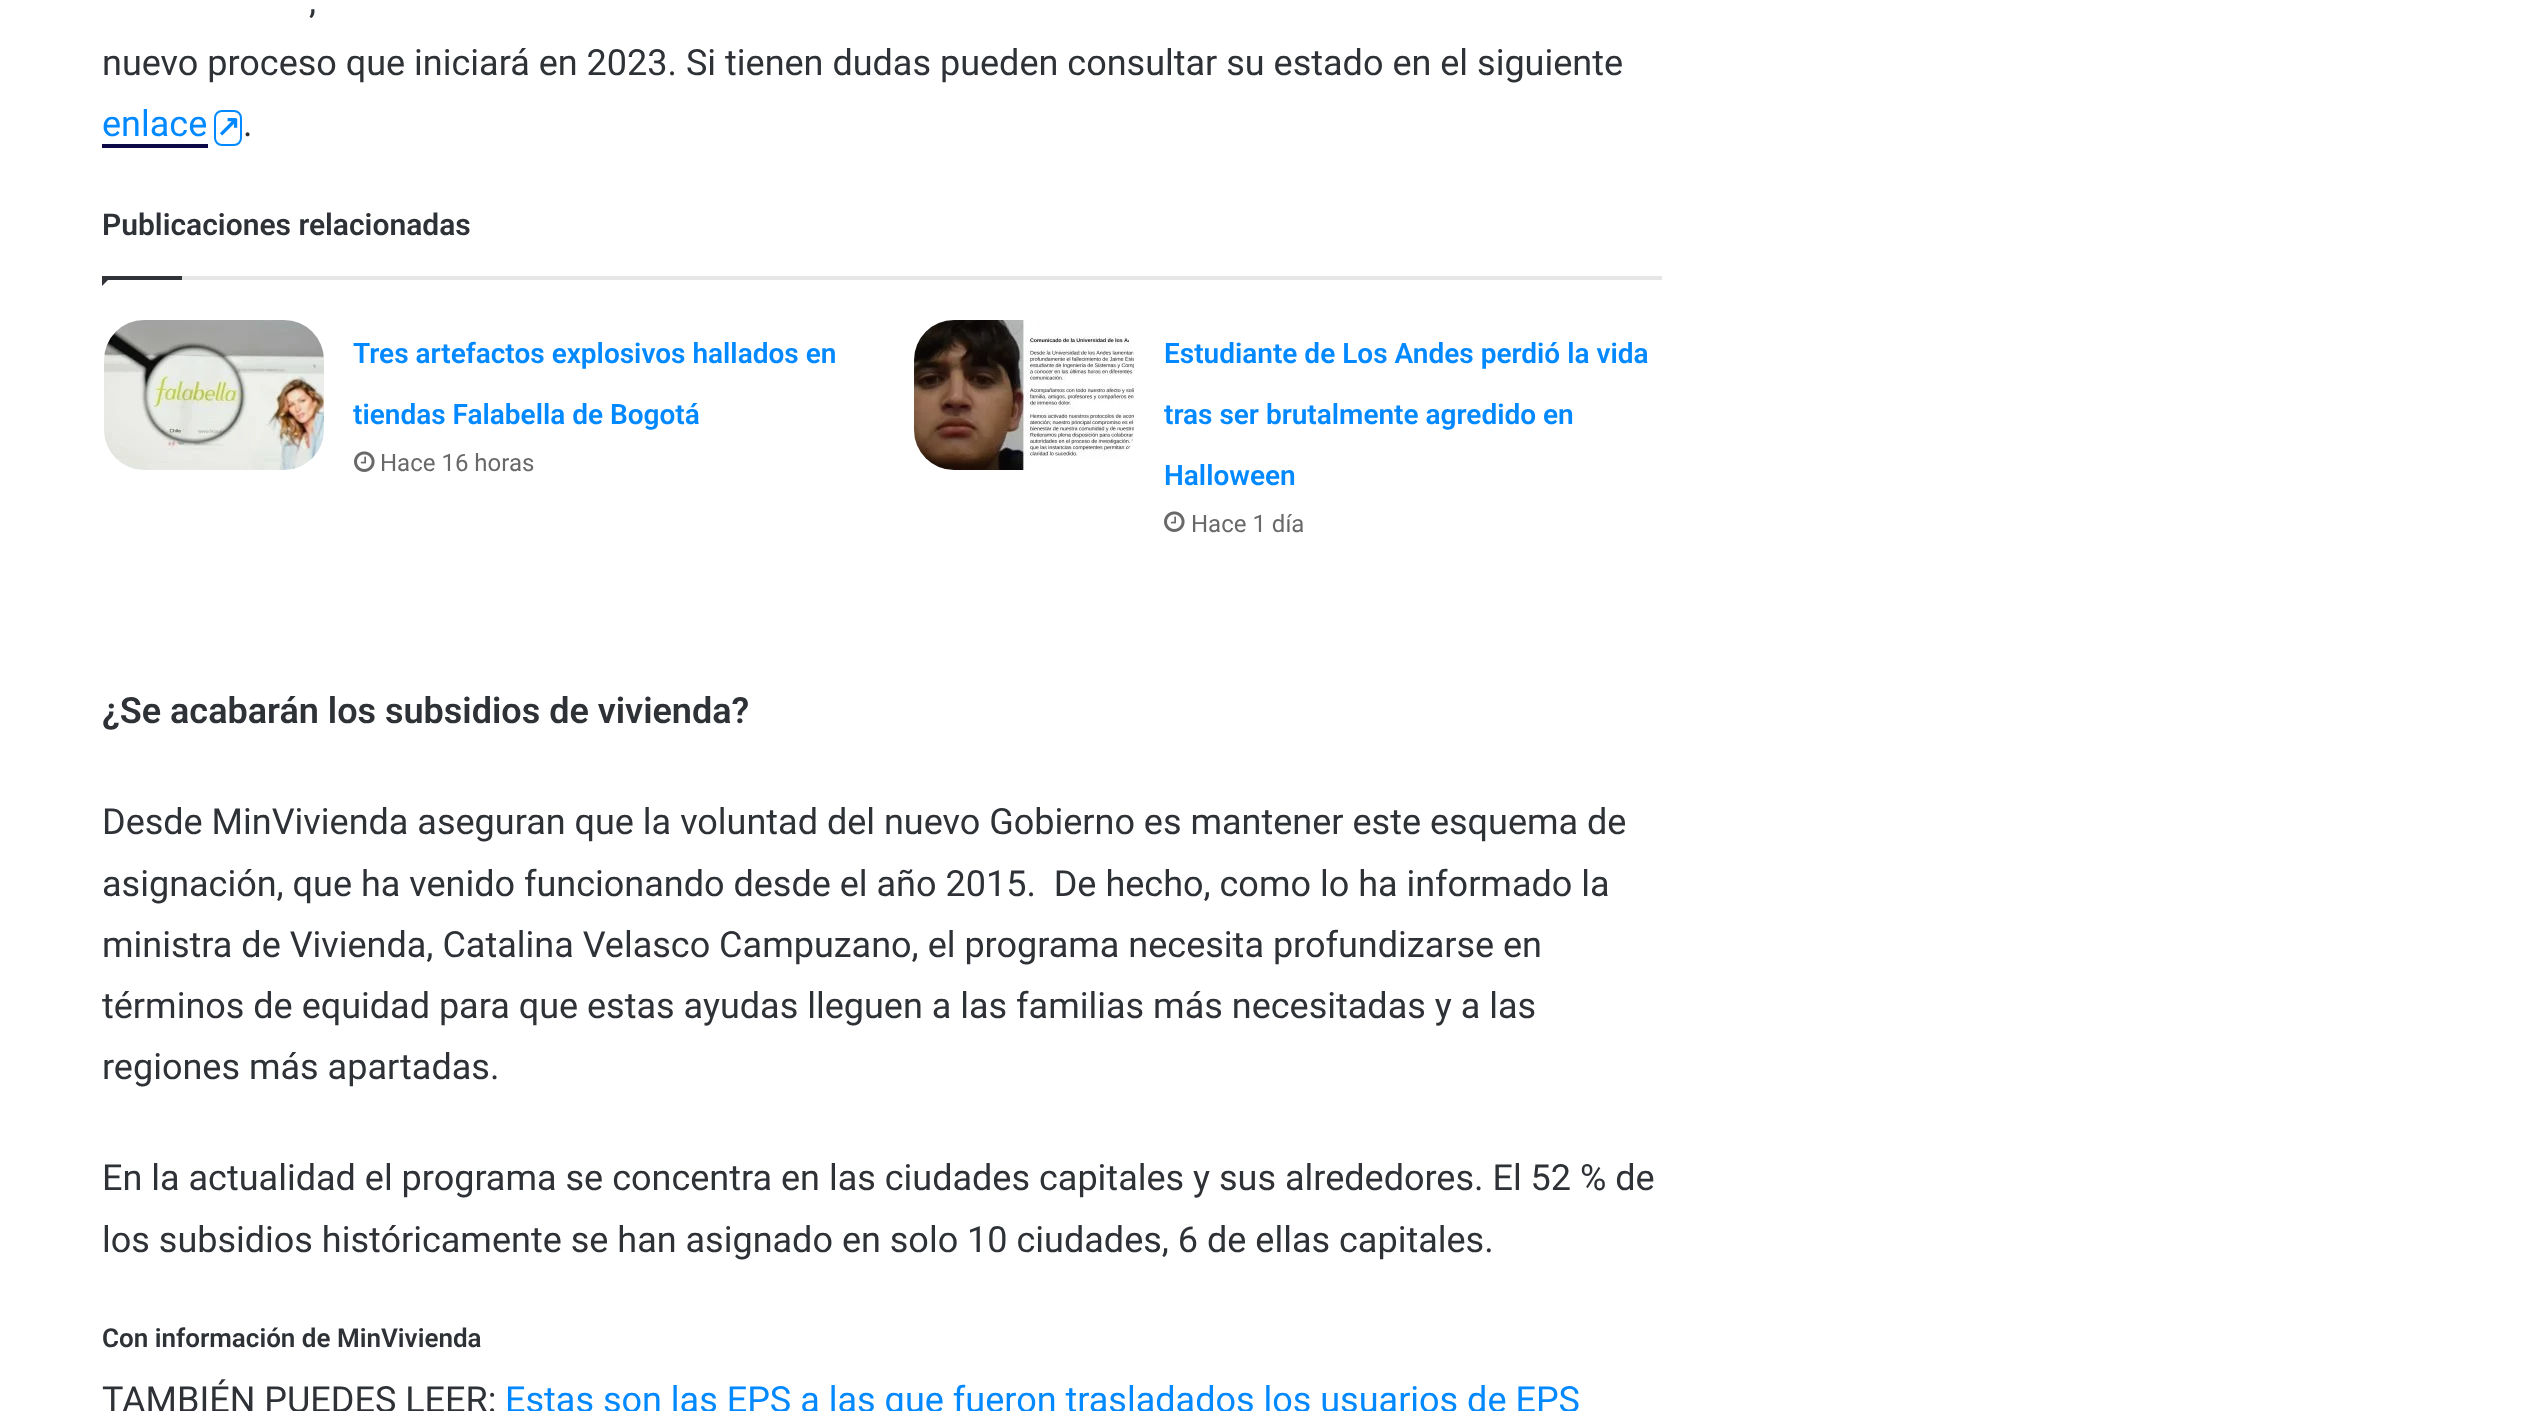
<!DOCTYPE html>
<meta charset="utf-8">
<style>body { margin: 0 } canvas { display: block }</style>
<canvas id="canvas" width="2544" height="1411"></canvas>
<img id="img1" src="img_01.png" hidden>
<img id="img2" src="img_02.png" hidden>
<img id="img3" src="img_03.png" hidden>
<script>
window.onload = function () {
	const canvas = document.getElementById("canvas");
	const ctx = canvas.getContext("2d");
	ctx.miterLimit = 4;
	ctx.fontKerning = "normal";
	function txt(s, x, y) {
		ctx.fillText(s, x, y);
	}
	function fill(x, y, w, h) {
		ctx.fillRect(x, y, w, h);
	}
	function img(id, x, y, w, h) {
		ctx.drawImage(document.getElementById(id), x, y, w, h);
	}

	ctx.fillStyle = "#FFFFFF";
	fill(0, 0, 2544, 1411);
	ctx.fillStyle = "#0D0947";
	fill(102, 144, 106, 4);
	ctx.beginPath();
	ctx.roundRect(215, 111, 26, 34, 7);
	ctx.strokeStyle = "#0389FF";
	ctx.lineWidth = 2;
	ctx.stroke();
	ctx.fillStyle = "#E6E6E6";
	fill(182, 276, 1480, 4);
	ctx.fillStyle = "#303338";
	ctx.beginPath();
	ctx.moveTo(102, 276);
	ctx.lineTo(112, 276);
	ctx.lineTo(102, 286);
	ctx.closePath();
	ctx.fill();
	fill(102, 276, 80, 4);
	img("img1", 104, 320, 220, 150);
	img("img2", 354, 451, 21, 21);
	img("img3", 914, 320, 220, 150);
	img("img2", 1164, 511, 21, 21);
	ctx.font = "36px Roboto";
	ctx.fillStyle = "#2E3136";
	txt(",", 309, 13);
	txt("nuevo proceso que iniciará en 2023. Si tienen dudas pueden consultar su estado en el siguiente", 102, 75);
	ctx.fillStyle = "#0389FF";
	txt("enlace", 102, 136);
	ctx.font = "bold 29px DejaVu Sans";
	txt("↗", 216, 136);
	ctx.font = "36px Roboto";
	ctx.fillStyle = "#2E3136";
	txt(".", 243, 136);
	ctx.font = "600 30px Roboto";
	txt("Publicaciones relacionadas", 102, 235);
	ctx.font = "600 28px Roboto";
	ctx.fillStyle = "#0389FF";
	txt("Tres artefactos explosivos hallados en", 353, 363);
	txt("tiendas Falabella de Bogotá", 353, 424);
	ctx.font = "24px Roboto";
	ctx.fillStyle = "#696969";
	txt("Hace 16 horas", 380, 471);
	ctx.font = "600 28px Roboto";
	ctx.fillStyle = "#0389FF";
	txt("Estudiante de Los Andes perdió la vida", 1164, 363);
	txt("tras ser brutalmente agredido en", 1164, 424);
	txt("Halloween", 1164, 485);
	ctx.font = "24px Roboto";
	ctx.fillStyle = "#696969";
	txt("Hace 1 día", 1191, 532);
	ctx.font = "600 36px Roboto";
	ctx.fillStyle = "#2E3136";
	txt("¿Se acabarán los subsidios de vivienda?", 102, 723);
	ctx.font = "36px Roboto";
	txt("Desde MinVivienda aseguran que la voluntad del nuevo Gobierno es mantener este esquema de", 102, 834);
	txt("asignación, que ha venido funcionando desde el año 2015.  De hecho, como lo ha informado la", 102, 896);
	txt("ministra de Vivienda, Catalina Velasco Campuzano, el programa necesita profundizarse en", 102, 957);
	txt("términos de equidad para que estas ayudas lleguen a las familias más necesitadas y a las", 102, 1018);
	txt("regiones más apartadas.", 102, 1079);
	txt("En la actualidad el programa se concentra en las ciudades capitales y sus alrededores. El 52 % de", 102, 1190);
	txt("los subsidios históricamente se han asignado en solo 10 ciudades, 6 de ellas capitales.", 102, 1252);
	ctx.font = "600 26px Roboto";
	txt("Con información de MinVivienda", 102, 1347);
	ctx.font = "36px Roboto";
	txt("TAMBIÉN PUEDES LEER:", 102, 1412);
	ctx.fillStyle = "#0389FF";
	txt("Estas son las EPS a las que fueron trasladados los usuarios de EPS", 505, 1412);
};
</script>
